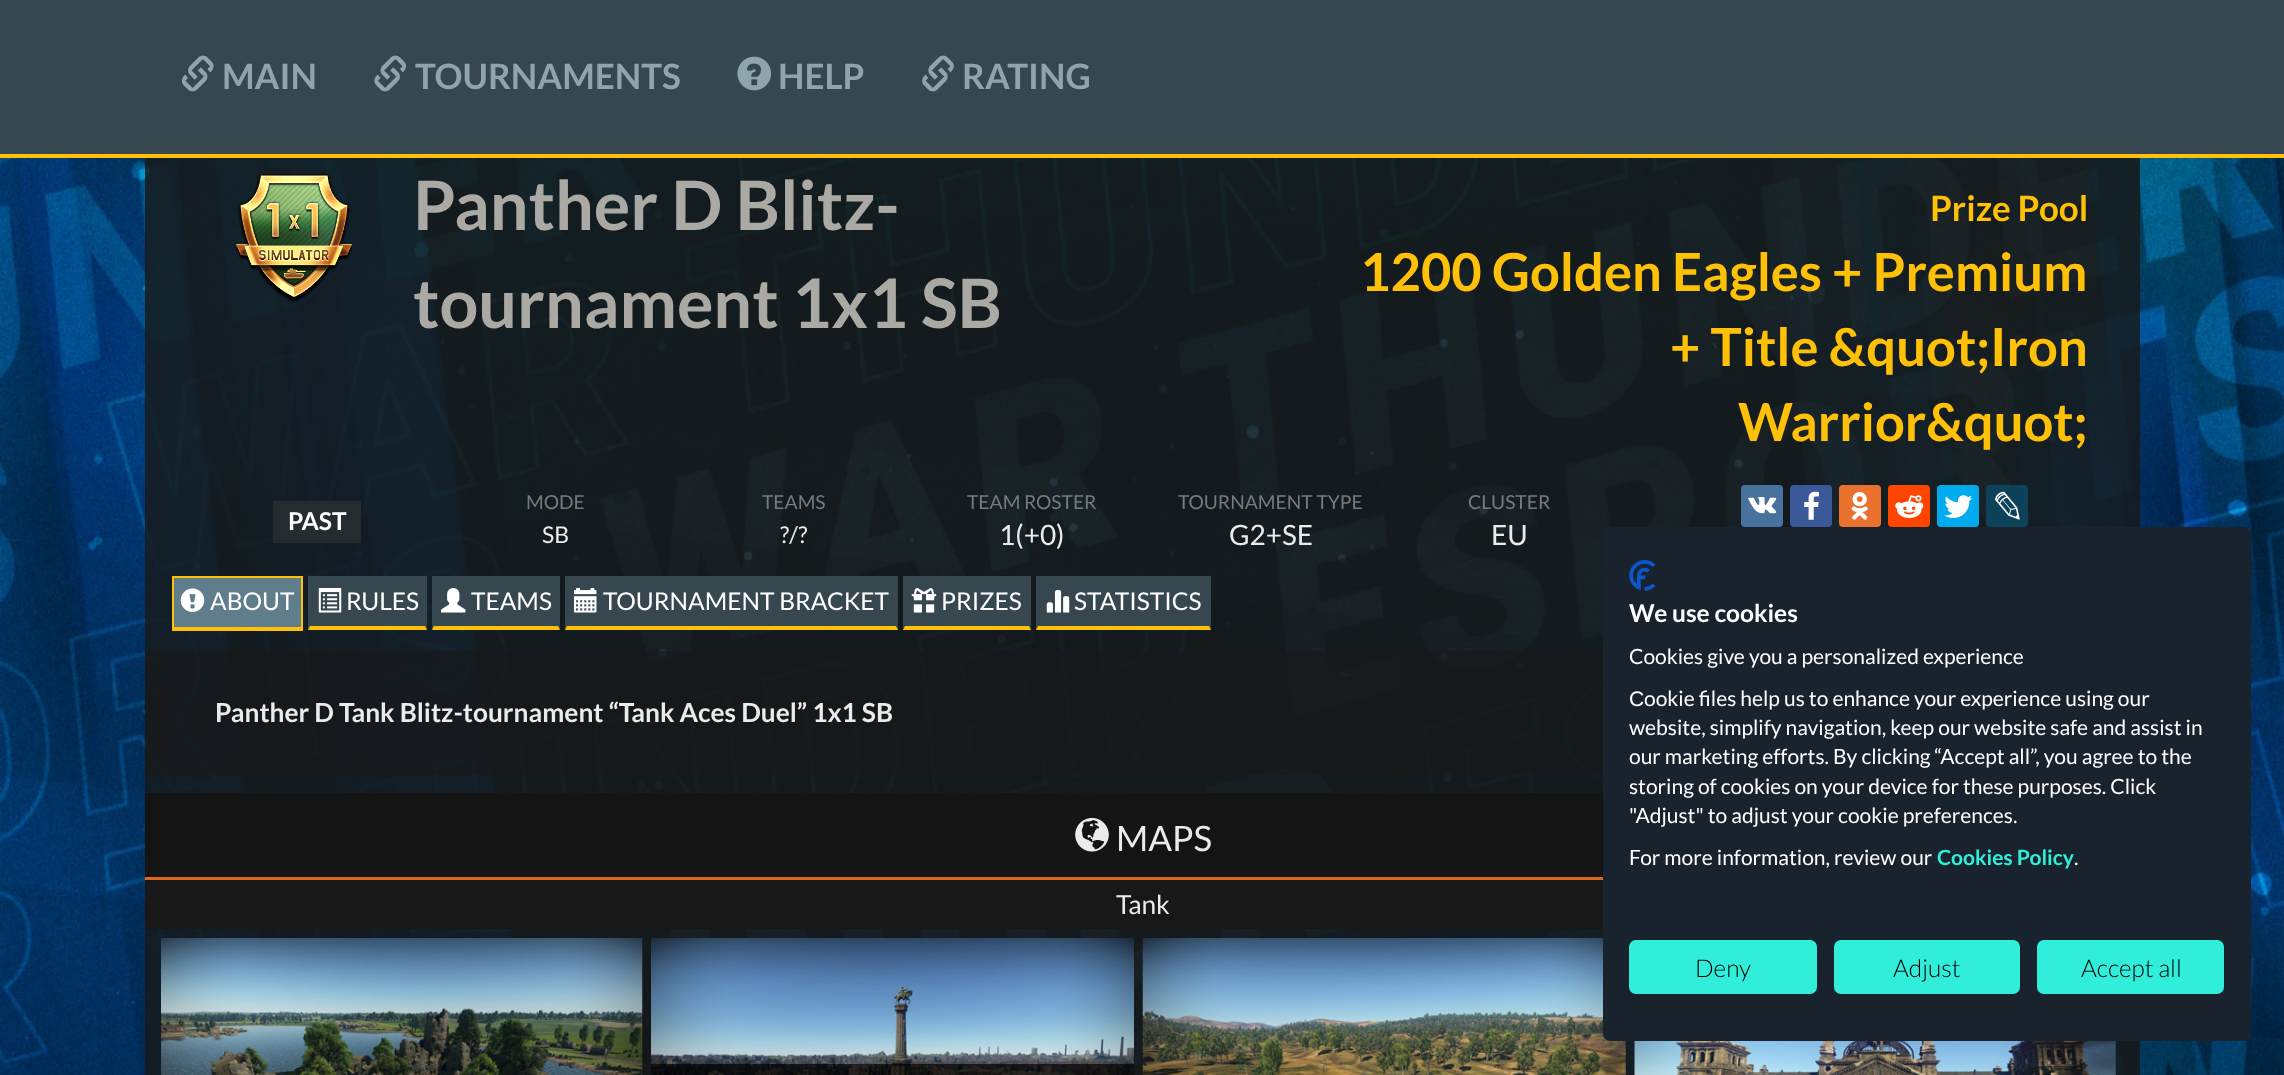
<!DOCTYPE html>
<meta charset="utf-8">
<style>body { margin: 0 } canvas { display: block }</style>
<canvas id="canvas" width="2284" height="1075"></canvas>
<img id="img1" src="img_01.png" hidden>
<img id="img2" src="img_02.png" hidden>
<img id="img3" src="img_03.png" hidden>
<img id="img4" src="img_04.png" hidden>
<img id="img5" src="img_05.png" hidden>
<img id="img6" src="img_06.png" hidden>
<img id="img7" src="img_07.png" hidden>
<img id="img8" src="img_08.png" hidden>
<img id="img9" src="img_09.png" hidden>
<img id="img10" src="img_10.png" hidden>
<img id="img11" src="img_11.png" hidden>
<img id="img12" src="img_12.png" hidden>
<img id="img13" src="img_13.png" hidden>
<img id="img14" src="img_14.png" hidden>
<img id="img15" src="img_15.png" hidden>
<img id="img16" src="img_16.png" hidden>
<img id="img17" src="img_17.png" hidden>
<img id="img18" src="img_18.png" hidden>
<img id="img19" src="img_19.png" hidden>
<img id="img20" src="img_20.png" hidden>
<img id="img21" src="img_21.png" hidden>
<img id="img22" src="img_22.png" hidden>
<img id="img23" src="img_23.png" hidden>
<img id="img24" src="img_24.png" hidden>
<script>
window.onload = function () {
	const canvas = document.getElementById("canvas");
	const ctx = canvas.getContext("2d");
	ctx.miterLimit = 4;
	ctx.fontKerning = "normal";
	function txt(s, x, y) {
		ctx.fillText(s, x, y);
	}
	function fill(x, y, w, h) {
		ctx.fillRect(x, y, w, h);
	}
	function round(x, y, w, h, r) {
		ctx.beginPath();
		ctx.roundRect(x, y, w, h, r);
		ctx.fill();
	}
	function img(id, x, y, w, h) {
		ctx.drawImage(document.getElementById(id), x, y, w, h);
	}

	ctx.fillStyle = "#FFFFFF";
	fill(0, 0, 2284, 1075);
	img("img1", 0, 158, 2284, 917);
	ctx.fillStyle = "#37474F";
	fill(0, 0, 2284, 154);
	ctx.fillStyle = "#FFC107";
	fill(0, 154, 2284, 4);
	img("img2", 181, 55, 33, 37);
	img("img3", 374, 55, 33, 37);
	img("img4", 737, 56, 35, 35);
	img("img5", 922, 55, 32, 37);
	ctx.fillStyle = "rgba(23, 26, 28, 0.84)";
	fill(145, 158, 1995, 327);
	img("img6", 235, 173, 118, 130);
	fill(145, 485, 1995, 91);
	ctx.fillStyle = "#252C30";
	fill(273, 501, 88, 42);
	ctx.fillStyle = "#48729E";
	round(1741, 485, 42, 42, 4);
	img("img7", 1748, 497, 29, 17);
	ctx.fillStyle = "#3B5998";
	round(1790, 485, 42, 42, 4);
	img("img8", 1804, 491, 15, 29);
	ctx.fillStyle = "#EB722E";
	round(1839, 485, 42, 42, 4);
	img("img9", 1851, 492, 17, 28);
	ctx.fillStyle = "#FF4500";
	round(1888, 485, 42, 42, 4);
	img("img10", 1895, 495, 29, 23);
	ctx.fillStyle = "#00ACED";
	round(1937, 485, 42, 42, 4);
	img("img11", 1944, 495, 29, 23);
	ctx.fillStyle = "#0D425A";
	round(1986, 485, 42, 42, 4);
	img("img12", 1995, 491, 25, 29);
	ctx.fillStyle = "rgba(23, 26, 28, 0.84)";
	fill(145, 576, 1458, 58);
	ctx.fillStyle = "#607D8B";
	fill(174, 578, 127, 49);
	ctx.fillStyle = "#FFC107";
	fill(172, 576, 131, 2);
	fill(301, 576, 2, 54);
	fill(172, 627, 131, 4);
	fill(172, 576, 2, 54);
	img("img13", 180, 588, 25, 24);
	ctx.fillStyle = "#37474F";
	fill(308, 576, 119, 54);
	ctx.fillStyle = "#FFC107";
	ctx.beginPath();
	ctx.moveTo(427, 630);
	ctx.lineTo(308, 630);
	ctx.lineTo(310, 626);
	ctx.lineTo(425, 626);
	ctx.closePath();
	ctx.fill();
	img("img14", 318, 588, 24, 25);
	ctx.fillStyle = "#37474F";
	fill(432, 576, 128, 54);
	ctx.fillStyle = "#FFC107";
	ctx.beginPath();
	ctx.moveTo(560, 630);
	ctx.lineTo(432, 630);
	ctx.lineTo(434, 626);
	ctx.lineTo(558, 626);
	ctx.closePath();
	ctx.fill();
	img("img15", 441, 588, 25, 25);
	ctx.fillStyle = "#37474F";
	fill(565, 576, 333, 54);
	ctx.fillStyle = "#FFC107";
	ctx.beginPath();
	ctx.moveTo(898, 630);
	ctx.lineTo(565, 630);
	ctx.lineTo(567, 626);
	ctx.lineTo(896, 626);
	ctx.closePath();
	ctx.fill();
	img("img16", 574, 588, 23, 25);
	ctx.fillStyle = "#37474F";
	fill(903, 576, 128, 54);
	ctx.fillStyle = "#FFC107";
	ctx.beginPath();
	ctx.moveTo(1031, 630);
	ctx.lineTo(903, 630);
	ctx.lineTo(905, 626);
	ctx.lineTo(1029, 626);
	ctx.closePath();
	ctx.fill();
	img("img17", 911, 588, 26, 25);
	ctx.fillStyle = "#37474F";
	fill(1036, 576, 175, 54);
	ctx.fillStyle = "#FFC107";
	ctx.beginPath();
	ctx.moveTo(1211, 630);
	ctx.lineTo(1036, 630);
	ctx.lineTo(1038, 626);
	ctx.lineTo(1209, 626);
	ctx.closePath();
	ctx.fill();
	img("img18", 1046, 590, 24, 23);
	ctx.fillStyle = "rgba(23, 26, 28, 0.84)";
	fill(145, 634, 1995, 441);
	ctx.fillStyle = "rgba(25, 24, 24, 0.61)";
	round(145, 651, 1995, 124, 7);
	ctx.fillStyle = "#151414";
	fill(145, 793, 1458, 84);
	ctx.fillStyle = "#DF691A";
	fill(145, 877, 1458, 3);
	img("img19", 1075, 817, 34, 35);
	ctx.fillStyle = "#191818";
	fill(145, 880, 1458, 49);
	img("img20", 161, 938, 482, 137);
	img("img21", 651, 938, 483, 137);
	ctx.fillStyle = "rgba(0, 0, 0, 0.67)";
	fill(651, 1064, 483, 11);
	img("img22", 1142, 938, 484, 137);
	img("img23", 1634, 1041, 482, 34);
	ctx.fillStyle = "#18232E";
	round(1603, 527, 648, 514, 7);
	img("img24", 1629, 560, 27, 31);
	ctx.fillStyle = "#31EEDA";
	ctx.beginPath();
	ctx.roundRect(1630, 941, 186, 52, 6);
	ctx.fill();
	ctx.strokeStyle = "#31EEDA";
	ctx.lineWidth = 2;
	ctx.stroke();
	ctx.beginPath();
	ctx.roundRect(1835, 941, 184, 52, 6);
	ctx.fill();
	ctx.stroke();
	ctx.beginPath();
	ctx.roundRect(2038, 941, 185, 52, 6);
	ctx.fill();
	ctx.stroke();
	ctx.font = "bold 35px Lato";
	ctx.fillStyle = "#90A4AE";
	txt("MAIN", 222, 89);
	txt("TOURNAMENTS", 415, 89);
	txt("HELP", 778, 89);
	txt("RATING", 962, 89);
	ctx.font = "bold 68.25px Lato";
	ctx.fillStyle = "#ABA9A3";
	txt("Panther D Blitz-", 413, 230);
	txt("tournament 1x1 SB", 413, 328);
	ctx.font = "bold 35px Lato";
	ctx.fillStyle = "#FFC107";
	txt("Prize Pool", 1930, 221);
	ctx.font = "bold 52.5px Lato";
	txt("1200 Golden Eagles + Premium", 1360, 291);
	txt("+ Title &quot;Iron", 1670, 366);
	txt("Warrior&quot;", 1738, 441);
	ctx.font = "bold 24.5px Lato";
	ctx.fillStyle = "#FFFFFF";
	txt("PAST", 288, 530);
	ctx.font = "19.25px Lato";
	ctx.fillStyle = "#757C7D";
	txt("MODE", 526, 509);
	ctx.font = "23px Lato";
	ctx.fillStyle = "#EBEBEB";
	txt("SB", 542, 543);
	ctx.font = "19.25px Lato";
	ctx.fillStyle = "#757C7D";
	txt("TEAMS", 762, 509);
	ctx.font = "23px Lato";
	ctx.fillStyle = "#EBEBEB";
	txt("?/?", 780, 543);
	ctx.font = "19.25px Lato";
	ctx.fillStyle = "#757C7D";
	txt("TEAM ROSTER", 967, 509);
	ctx.font = "28px Lato";
	ctx.fillStyle = "#EBEBEB";
	txt("1(+0)", 999, 545);
	ctx.font = "19.25px Lato";
	ctx.fillStyle = "#757C7D";
	txt("TOURNAMENT TYPE", 1178, 509);
	ctx.font = "28px Lato";
	ctx.fillStyle = "#EBEBEB";
	txt("G2+SE", 1229, 545);
	ctx.font = "19.25px Lato";
	ctx.fillStyle = "#757C7D";
	txt("CLUSTER", 1468, 509);
	ctx.font = "28px Lato";
	ctx.fillStyle = "#EBEBEB";
	txt("EU", 1491, 545);
	ctx.font = "24.5px Lato";
	ctx.fillStyle = "#FFFFFF";
	txt("ABOUT", 210, 610);
	txt("RULES", 346, 610);
	txt("TEAMS", 471, 610);
	txt("TOURNAMENT BRACKET", 603, 610);
	txt("PRIZES", 941, 610);
	txt("STATISTICS", 1074, 610);
	ctx.font = "bold 26.25px Lato";
	ctx.fillStyle = "#EBEBEB";
	txt("Panther D Tank Blitz-tournament “Tank Aces Duel” 1x1 SB", 215, 722);
	ctx.font = "35px Lato";
	txt("MAPS", 1116, 851);
	ctx.font = "26.25px Lato";
	txt("Tank", 1116, 914);
	ctx.font = "bold 24.5px Lato";
	ctx.fillStyle = "#FFFFFF";
	txt("We use cookies", 1629, 622);
	ctx.font = "21px Lato";
	txt("Cookies give you a personalized experience", 1629, 664);
	ctx.font = "21px Liberation Sans";
	txt("С", 1629, 706);
	ctx.font = "21px Lato";
	txt("ookie files help us to enhance your experience using our", 1644, 706);
	txt("website, simplify navigation, keep our website safe and assist in", 1629, 735);
	txt("our marketing efforts. By clicking “Accept all”, you agree to the", 1629, 764);
	txt("storing of cookies on your device for these purposes. Click", 1629, 794);
	txt("\"Adjust\" to adjust your cookie preferences.", 1629, 823);
	txt("For more information, review our", 1629, 865);
	ctx.font = "bold 21px Lato";
	ctx.fillStyle = "#31EEDA";
	txt("Cookies Policy", 1937, 865);
	ctx.font = "21px Lato";
	ctx.fillStyle = "#FFFFFF";
	txt(".", 2074, 865);
	ctx.font = "300 24.5px Lato";
	ctx.fillStyle = "#000000";
	txt("Deny", 1695, 977);
	txt("Adjust", 1893, 977);
	txt("Accept all", 2081, 977);
};
</script>
